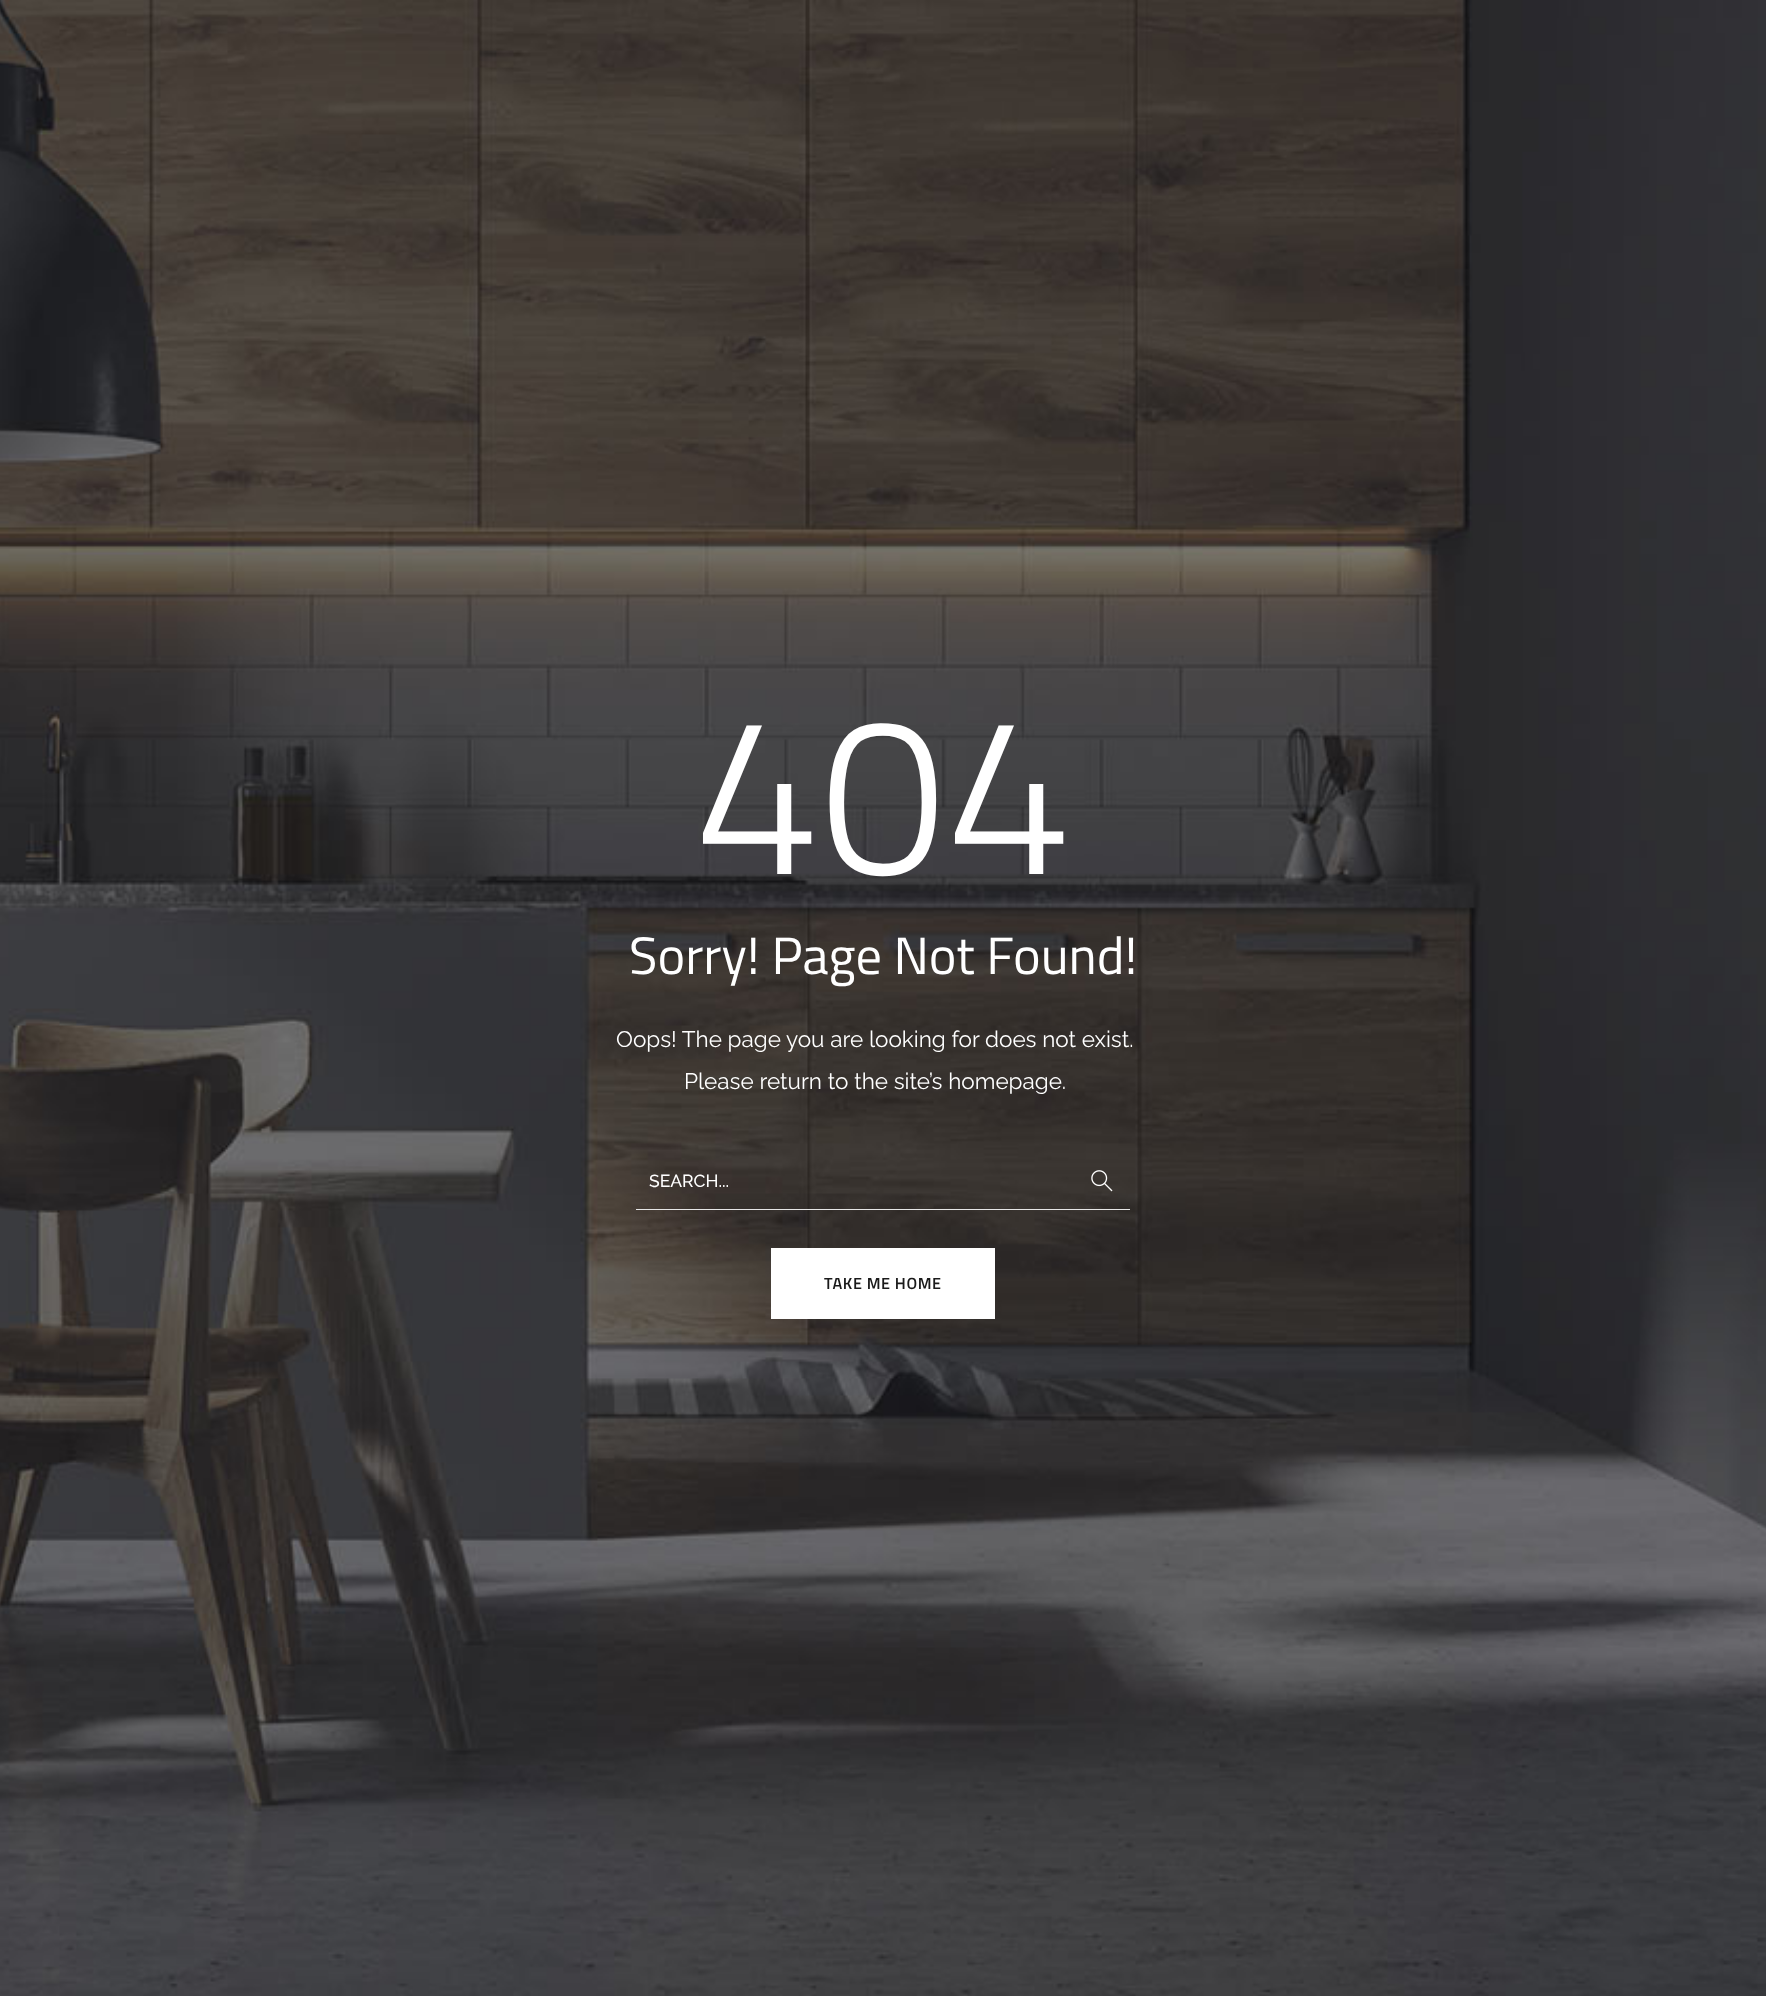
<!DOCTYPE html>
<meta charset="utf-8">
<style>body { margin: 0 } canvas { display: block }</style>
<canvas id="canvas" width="1766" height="1996"></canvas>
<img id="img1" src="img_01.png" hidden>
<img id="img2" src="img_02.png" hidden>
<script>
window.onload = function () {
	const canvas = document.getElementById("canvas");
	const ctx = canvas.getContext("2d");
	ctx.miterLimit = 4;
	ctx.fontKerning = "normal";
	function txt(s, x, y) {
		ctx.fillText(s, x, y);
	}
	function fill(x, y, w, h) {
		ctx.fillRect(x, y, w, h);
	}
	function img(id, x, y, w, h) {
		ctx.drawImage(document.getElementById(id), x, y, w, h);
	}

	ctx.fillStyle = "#FFFFFF";
	fill(0, 0, 1766, 1996);
	img("img1", 0, 0, 1766, 1996);
	ctx.fillStyle = "#E6E6E6";
	fill(636, 1209, 494, 1);
	img("img2", 1091, 1170, 22, 22);
	ctx.fillStyle = "#FFFFFF";
	fill(771, 1248, 224, 71);
	ctx.font = "300 225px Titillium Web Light";
	txt("404", 694, 874);
	ctx.font = "52.5px Titillium Web";
	txt("Sorry! Page Not Found!", 629, 974);
	ctx.font = "22.5px Raleway";
	txt("Oops! The page you are looking for does not exist.", 616, 1047);
	txt("Please return to the site’s homepage.", 684, 1089);
	ctx.font = "500 17.5px Raleway";
	txt("SEARCH...", 649, 1187);
	ctx.letterSpacing = "0.6px";
	ctx.font = "600 16.25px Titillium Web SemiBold";
	ctx.fillStyle = "#1A1A1A";
	txt("TAKE ME HOME", 824, 1289);
};
</script>
